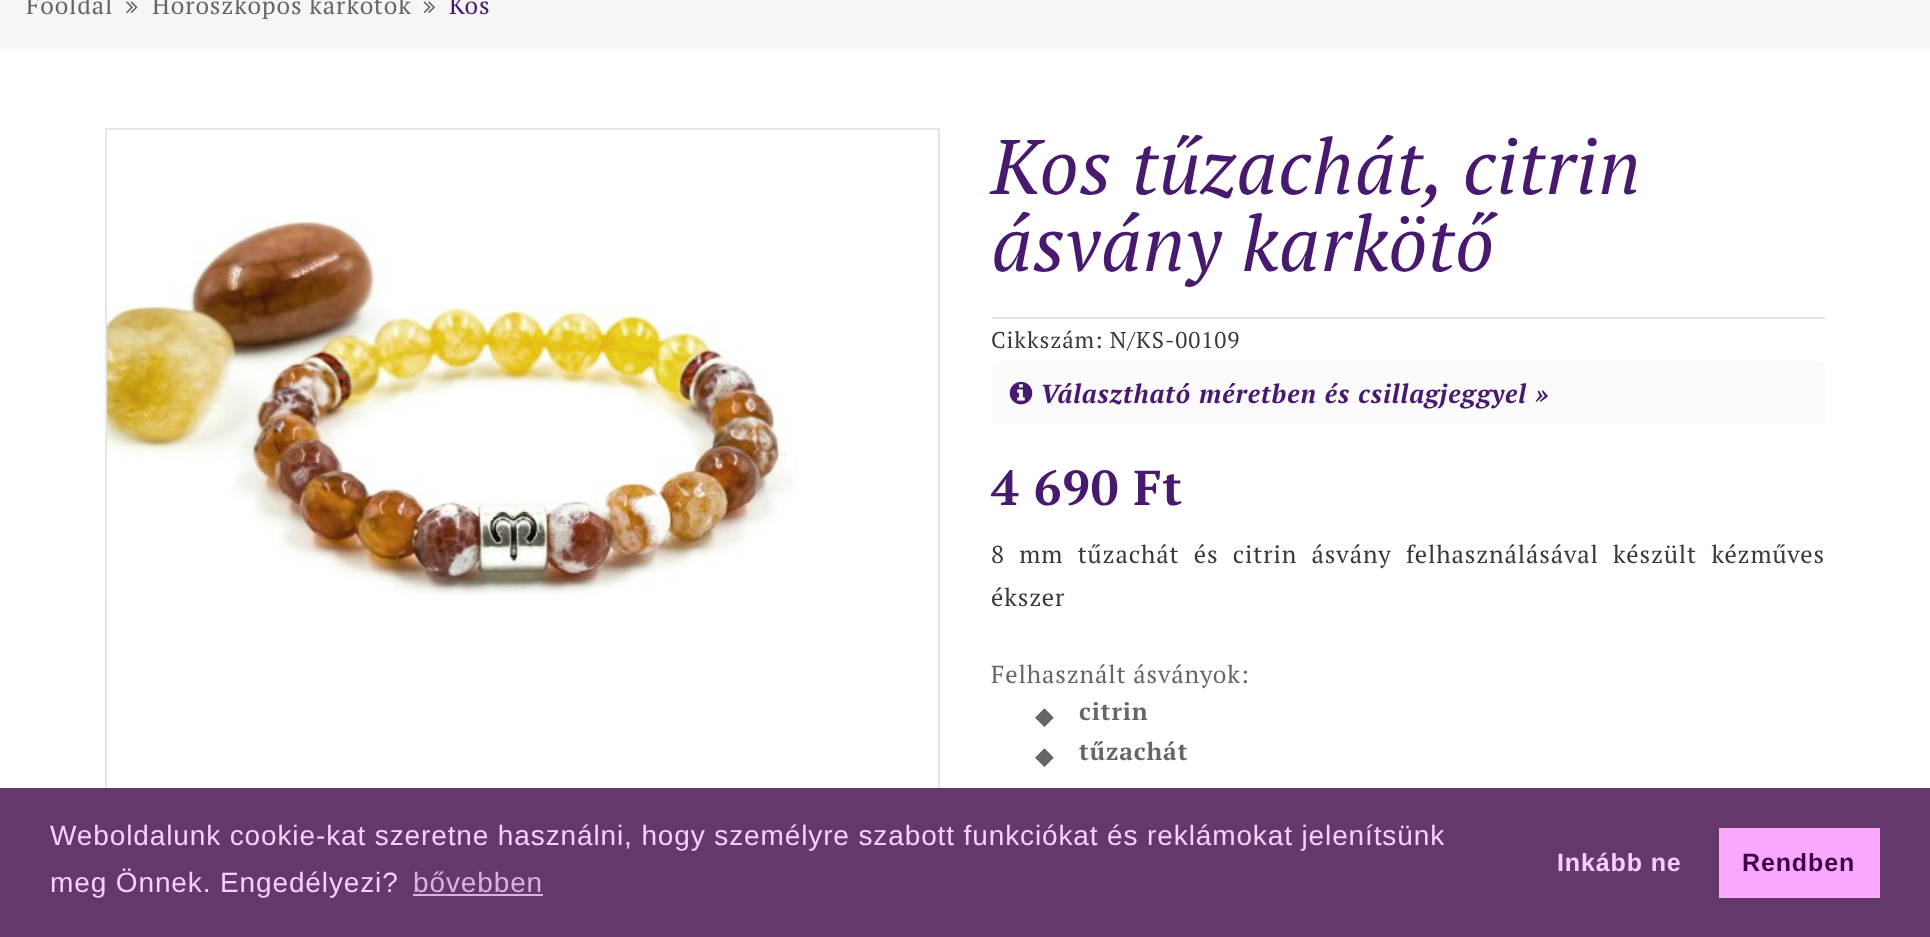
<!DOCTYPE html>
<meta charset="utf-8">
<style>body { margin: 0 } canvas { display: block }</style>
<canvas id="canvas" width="1930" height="937"></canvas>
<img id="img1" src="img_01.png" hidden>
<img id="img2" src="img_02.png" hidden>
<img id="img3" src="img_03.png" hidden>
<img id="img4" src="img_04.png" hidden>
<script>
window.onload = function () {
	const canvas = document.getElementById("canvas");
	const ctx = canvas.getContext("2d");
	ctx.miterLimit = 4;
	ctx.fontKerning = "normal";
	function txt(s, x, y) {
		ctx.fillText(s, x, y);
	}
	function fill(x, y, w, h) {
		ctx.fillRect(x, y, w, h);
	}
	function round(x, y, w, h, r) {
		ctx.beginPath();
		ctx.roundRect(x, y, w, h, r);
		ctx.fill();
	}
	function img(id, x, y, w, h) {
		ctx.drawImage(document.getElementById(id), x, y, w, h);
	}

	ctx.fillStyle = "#FFFFFF";
	fill(0, 0, 1930, 937);
	ctx.fillStyle = "#F6F6F6";
	fill(0, 0, 1930, 49);
	img("img1", 126, 1, 12, 12);
	img("img2", 423, 1, 12, 12);
	ctx.strokeStyle = "#E5E5E5";
	ctx.lineWidth = 2;
	ctx.strokeRect(106, 129, 833, 668);
	img("img3", 106, 129, 830, 468);
	ctx.fillStyle = "#E5E5E5";
	fill(992, 317, 833, 2);
	ctx.fillStyle = "#FBFBFB";
	round(992, 362, 833, 62, 5);
	img("img4", 1009, 381, 24, 24);
	ctx.fillStyle = "#64386B";
	fill(0, 788, 1930, 149);
	ctx.fillStyle = "#E0AFE0";
	fill(413, 894, 130, 2);
	ctx.fillStyle = "#F8A8FF";
	fill(1719, 828, 161, 70);
	ctx.letterSpacing = "0.88px";
	ctx.font = "24.5px PT Serif";
	ctx.fillStyle = "#666666";
	txt("Főoldal", 26, 14);
	txt("Horoszkópos karkötők", 152, 14);
	ctx.fillStyle = "#471A6F";
	txt("Kos", 449, 14);
	ctx.font = "italic 77px PT Serif";
	txt("Kos tűzachát, citrin", 991, 194);
	txt("ásvány karkötő", 991, 271);
	ctx.font = "22.75px PT Serif";
	ctx.fillStyle = "#3A3A3A";
	txt("Cikkszám: N/KS-00109", 991, 348);
	ctx.font = "italic bold 26.25px PT Serif";
	ctx.fillStyle = "#471A6F";
	txt("Választható méretben és csillagjeggyel »", 1040, 403);
	ctx.font = "bold 49px PT Serif";
	txt("4 690 Ft", 991, 505);
	ctx.wordSpacing = "7.5px";
	ctx.font = "24.5px PT Serif";
	ctx.fillStyle = "#3A3A3A";
	txt("8 mm tűzachát és citrin ásvány felhasználásával készült kézműves", 991, 563);
	ctx.wordSpacing = "0px";
	txt("ékszer", 991, 606);
	ctx.fillStyle = "#666666";
	txt("Felhasznált ásványok:", 991, 683);
	ctx.font = "24.5px DejaVu Sans";
	txt("◆", 1035, 724);
	ctx.font = "bold 24.5px PT Serif";
	txt("citrin", 1079, 720);
	ctx.font = "24.5px DejaVu Sans";
	txt("◆", 1035, 764);
	ctx.font = "bold 24.5px PT Serif";
	txt("tűzachát", 1079, 760);
	ctx.font = "28px Liberation Sans";
	ctx.fillStyle = "#FFCDFD";
	txt("Weboldalunk cookie-kat szeretne használni, hogy személyre szabott funkciókat és reklámokat jelenítsünk", 50, 845);
	txt("meg Önnek. Engedélyezi?", 50, 892);
	ctx.fillStyle = "#E0AFE0";
	txt("bővebben", 413, 892);
	ctx.font = "bold 25px Liberation Sans";
	ctx.fillStyle = "#FFCDFD";
	txt("Inkább ne", 1557, 871);
	ctx.fillStyle = "#3F0045";
	txt("Rendben", 1742, 871);
};
</script>
